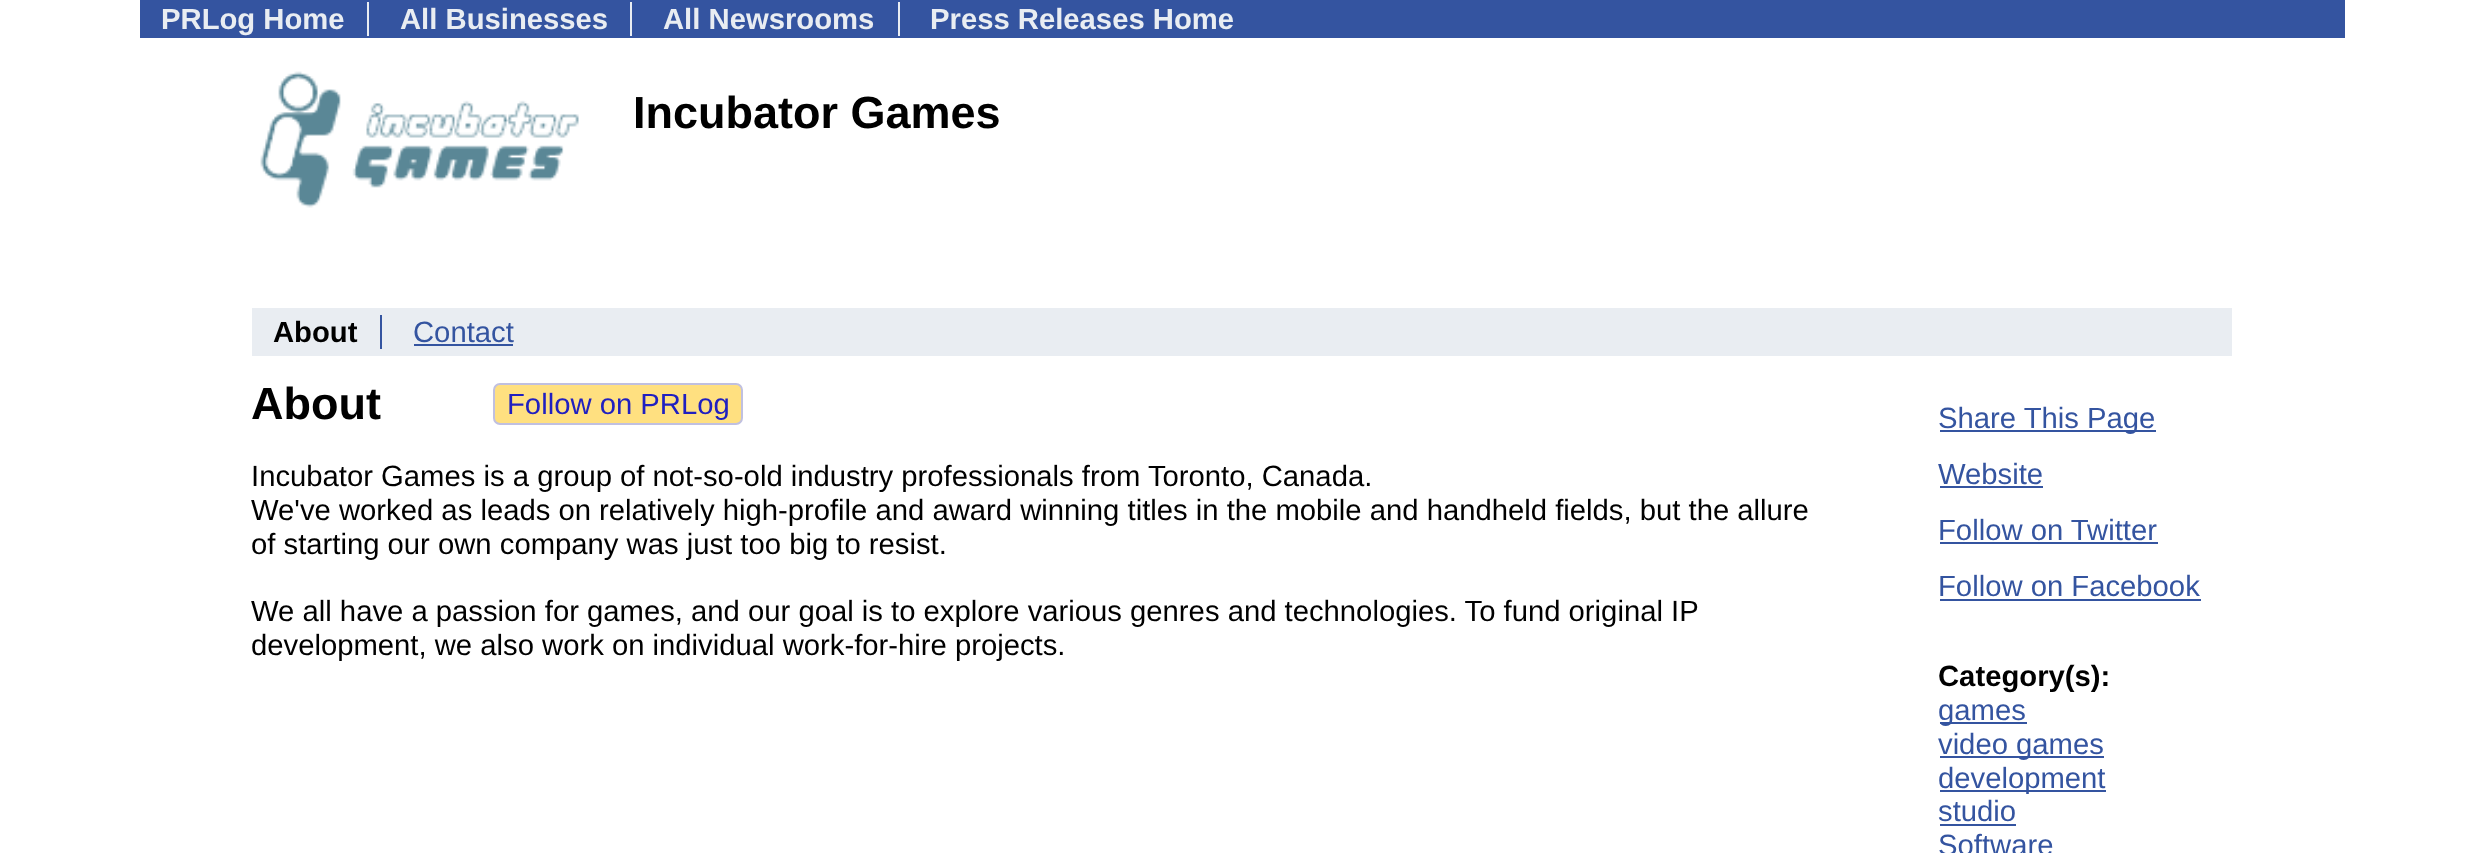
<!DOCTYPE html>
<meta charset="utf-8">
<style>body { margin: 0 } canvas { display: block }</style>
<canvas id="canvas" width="2480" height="853"></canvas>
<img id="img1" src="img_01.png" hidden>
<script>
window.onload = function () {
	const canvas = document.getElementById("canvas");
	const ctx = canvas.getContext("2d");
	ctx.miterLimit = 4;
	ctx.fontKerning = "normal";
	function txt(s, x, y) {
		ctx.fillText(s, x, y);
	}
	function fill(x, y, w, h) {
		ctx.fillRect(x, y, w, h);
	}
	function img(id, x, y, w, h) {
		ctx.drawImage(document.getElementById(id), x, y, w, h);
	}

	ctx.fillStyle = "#FFFFFF";
	fill(0, 0, 2480, 853);
	ctx.fillStyle = "#3454A0";
	fill(140, 0, 2205, 38);
	ctx.fillStyle = "#E9EDF2";
	fill(367, 2, 2, 34);
	fill(630, 2, 2, 34);
	fill(898, 2, 2, 34);
	img("img1", 260, 71, 319, 137);
	fill(252, 308, 1980, 48);
	ctx.fillStyle = "#3454A0";
	fill(380, 315, 2, 34);
	fill(414, 344, 99, 2);
	ctx.fillStyle = "#FFE080";
	ctx.beginPath();
	ctx.roundRect(494, 384, 248, 40, 6);
	ctx.fill();
	ctx.strokeStyle = "#C0C0E0";
	ctx.lineWidth = 2;
	ctx.stroke();
	ctx.fillStyle = "#3454A0";
	fill(1940, 430, 216, 2);
	fill(1940, 486, 103, 2);
	fill(1940, 542, 218, 2);
	fill(1940, 599, 261, 2);
	fill(1940, 722, 87, 2);
	fill(1940, 756, 164, 2);
	fill(1940, 790, 166, 2);
	fill(1940, 824, 76, 2);
	ctx.font = "bold 29.25px Liberation Sans";
	ctx.fillStyle = "#E9EDF2";
	txt("PRLog Home", 161, 29);
	txt("All Businesses", 400, 29);
	txt("All Newsrooms", 663, 29);
	txt("Press Releases Home", 930, 29);
	ctx.font = "bold 45px Liberation Sans";
	ctx.fillStyle = "#000000";
	txt("Incubator Games", 633, 128);
	ctx.font = "bold 29.25px Liberation Sans";
	txt("About", 273, 342);
	ctx.font = "29.25px Liberation Sans";
	ctx.fillStyle = "#3454A0";
	txt("Contact", 413, 342);
	ctx.font = "bold 45px Liberation Sans";
	ctx.fillStyle = "#000000";
	txt("About", 251, 419);
	ctx.font = "29.25px Liberation Sans";
	ctx.fillStyle = "#2020C0";
	txt("Follow on PRLog", 507, 414);
	ctx.fillStyle = "#000000";
	txt("Incubator Games is a group of not-so-old industry professionals from Toronto, Canada.", 251, 486);
	txt("We've worked as leads on relatively high-profile and award winning titles in the mobile and handheld fields, but the allure", 251, 520);
	txt("of starting our own company was just too big to resist.", 251, 554);
	txt("We all have a passion for games, and our goal is to explore various genres and technologies. To fund original IP", 251, 621);
	txt("development, we also work on individual work-for-hire projects.", 251, 655);
	ctx.fillStyle = "#3454A0";
	txt("Share This Page", 1938, 428);
	txt("Website", 1938, 484);
	txt("Follow on Twitter", 1938, 540);
	txt("Follow on Facebook", 1938, 596);
	ctx.font = "bold 29.25px Liberation Sans";
	ctx.fillStyle = "#000000";
	txt("Category(s):", 1938, 686);
	ctx.font = "29.25px Liberation Sans";
	ctx.fillStyle = "#3454A0";
	txt("games", 1938, 720);
	txt("video games", 1938, 754);
	txt("development", 1938, 788);
	txt("studio", 1938, 821);
	txt("Software", 1938, 855);
};
</script>
